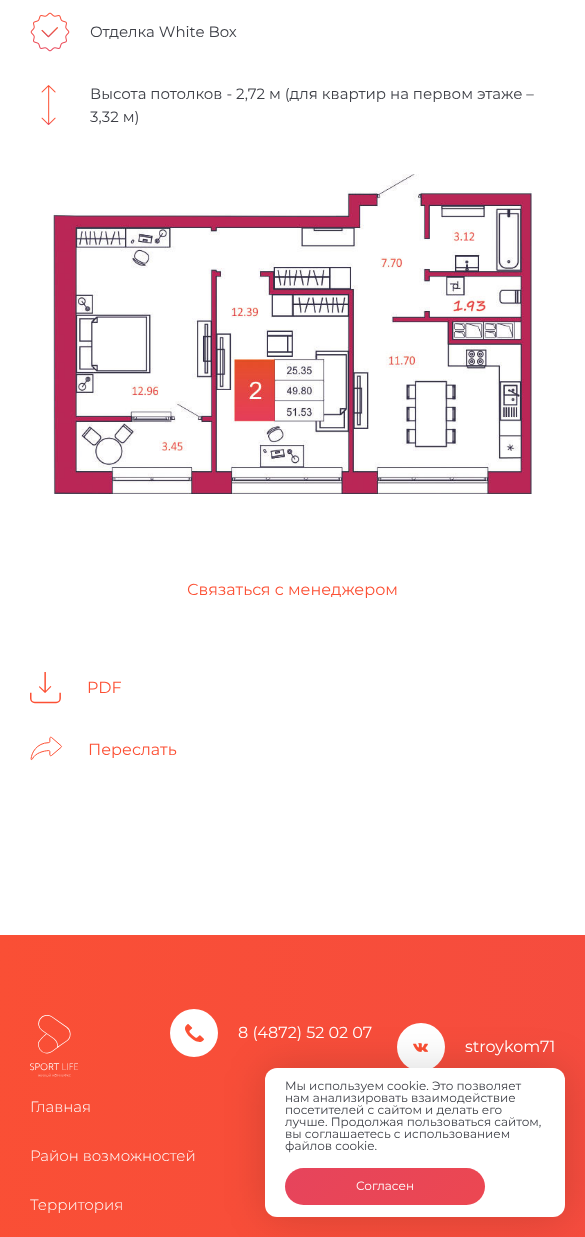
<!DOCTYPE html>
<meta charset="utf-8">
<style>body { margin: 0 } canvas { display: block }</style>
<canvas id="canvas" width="585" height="1237"></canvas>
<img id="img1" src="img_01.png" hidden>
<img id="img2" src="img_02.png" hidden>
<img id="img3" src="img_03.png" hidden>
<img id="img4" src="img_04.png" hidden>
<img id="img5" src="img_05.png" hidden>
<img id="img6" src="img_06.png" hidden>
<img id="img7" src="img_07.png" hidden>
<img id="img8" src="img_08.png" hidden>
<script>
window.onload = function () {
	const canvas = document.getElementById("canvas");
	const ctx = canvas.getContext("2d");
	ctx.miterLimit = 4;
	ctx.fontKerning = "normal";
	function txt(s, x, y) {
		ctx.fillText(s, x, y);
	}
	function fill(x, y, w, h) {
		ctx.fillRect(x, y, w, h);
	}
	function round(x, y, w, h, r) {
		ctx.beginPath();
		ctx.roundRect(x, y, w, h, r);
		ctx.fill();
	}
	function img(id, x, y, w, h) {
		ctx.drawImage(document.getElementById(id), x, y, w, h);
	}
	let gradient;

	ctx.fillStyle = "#FFFFFF";
	fill(0, 0, 585, 1237);
	img("img1", 30, 12, 40, 40);
	img("img2", 41, 85, 15, 40);
	img("img3", 53, 174, 479, 320);
	img("img4", 30, 672, 31, 32);
	img("img5", 30, 736, 33, 25);
	gradient = ctx.createLinearGradient(-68, 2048, 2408, 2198);
	gradient.addColorStop(0, "#FA4F35");
	gradient.addColorStop(1, "#E6445C");
	ctx.fillStyle = gradient;
	fill(0, 935, 585, 302);
	img("img6", 30, 1015, 48, 62);
	ctx.fillStyle = "#FFFFFF";
	ctx.beginPath();
	ctx.arc(194, 1033, 24, 0, Math.PI * 2);
	ctx.fill();
	img("img7", 185, 1024, 19, 18);
	ctx.beginPath();
	ctx.arc(421, 1047, 24, 0, Math.PI * 2);
	ctx.fill();
	img("img8", 413, 1043, 15, 9);
	ctx.fillStyle = "rgba(0, 0, 0, 0.15)";
	ctx.filter = "blur(20px)";
	ctx.beginPath();
	ctx.roundRect(265, 1068, 300, 149, 12);
	ctx.fill();
	ctx.filter = "none";
	ctx.fillStyle = "#FFFFFF";
	round(265, 1068, 300, 149, 12);
	gradient = ctx.createLinearGradient(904, 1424, 467, 987);
	gradient.addColorStop(0, "#FC5034");
	gradient.addColorStop(1, "#E6445C");
	ctx.fillStyle = gradient;
	round(285, 1168, 200, 37, 18.5);
	ctx.font = "15px Montserrat";
	ctx.fillStyle = "#3D3F46";
	txt("Отделка White Box", 90, 37);
	txt("Высота потолков - 2,72 м (для квартир на первом этаже –", 90, 99);
	txt("3,32 м)", 90, 122);
	ctx.font = "16px Montserrat";
	ctx.fillStyle = "#FC5034";
	txt("Связаться с менеджером", 187, 595);
	txt("PDF", 87, 693);
	txt("Переслать", 88, 755);
	ctx.fillStyle = "#FFFFFF";
	txt("8 (4872) 52 02 07", 238, 1038);
	txt("stroykom71", 465, 1052);
	ctx.font = "300 15px Montserrat";
	txt("Главная", 30, 1112);
	txt("Район возможностей", 30, 1161);
	txt("Территория", 30, 1210);
	ctx.font = "12px Montserrat";
	ctx.fillStyle = "#3D3F46";
	txt("Мы используем cookie. Это позволяет", 285, 1090);
	txt("нам анализировать взаимодействие", 285, 1102);
	txt("посетителей с сайтом и делать его", 285, 1114);
	txt("лучше. Продолжая пользоваться сайтом,", 285, 1126);
	txt("вы соглашаетесь с использованием", 285, 1138);
	txt("файлов cookie.", 285, 1150);
	ctx.fillStyle = "#FFFFFF";
	txt("Согласен", 356, 1190);
};
</script>
